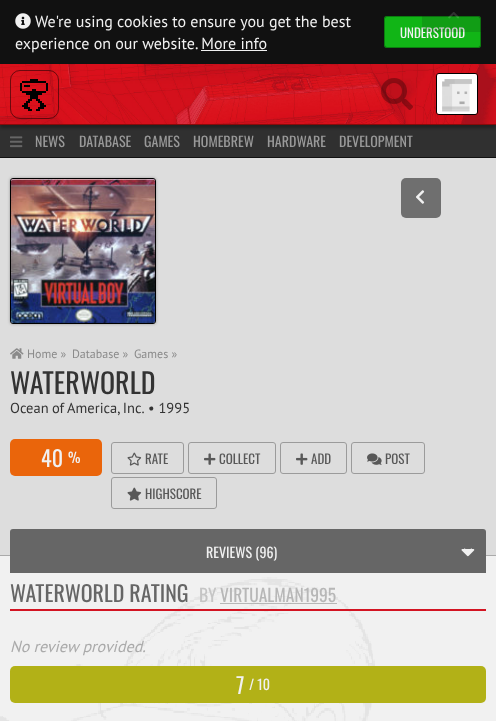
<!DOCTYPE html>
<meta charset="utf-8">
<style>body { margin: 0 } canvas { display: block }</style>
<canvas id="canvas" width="496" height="721"></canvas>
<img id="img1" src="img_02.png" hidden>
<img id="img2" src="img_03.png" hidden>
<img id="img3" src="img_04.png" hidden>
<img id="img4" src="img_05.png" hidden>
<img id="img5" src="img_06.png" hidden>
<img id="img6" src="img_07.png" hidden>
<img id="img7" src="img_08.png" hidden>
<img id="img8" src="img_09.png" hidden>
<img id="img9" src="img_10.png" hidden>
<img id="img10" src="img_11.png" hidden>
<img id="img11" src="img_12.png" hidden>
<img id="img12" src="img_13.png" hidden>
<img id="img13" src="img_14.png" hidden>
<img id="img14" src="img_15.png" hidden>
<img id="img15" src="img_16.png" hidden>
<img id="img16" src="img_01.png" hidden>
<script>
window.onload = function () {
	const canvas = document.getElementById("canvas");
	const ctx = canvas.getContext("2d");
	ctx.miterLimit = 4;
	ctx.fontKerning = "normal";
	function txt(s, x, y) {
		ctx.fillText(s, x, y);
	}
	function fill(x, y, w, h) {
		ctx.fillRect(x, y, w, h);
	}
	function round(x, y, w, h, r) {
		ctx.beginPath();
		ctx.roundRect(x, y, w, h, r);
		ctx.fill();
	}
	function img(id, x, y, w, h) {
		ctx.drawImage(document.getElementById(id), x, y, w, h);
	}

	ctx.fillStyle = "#F1F1F1";
	fill(0, 0, 496, 721);
	ctx.fillStyle = "#111111";
	fill(0, 0, 496, 64);
	img("img1", 15, 13, 16, 16);
	ctx.fillStyle = "#F1F1F1";
	fill(201, 50, 66, 1);
	ctx.fillStyle = "#11B516";
	round(384, 16, 97, 32, 3);
	ctx.beginPath();
	ctx.roundRect(384.5, 16.5, 96, 31, 2.5);
	ctx.strokeStyle = "rgba(0, 0, 0, 0.3)";
	ctx.stroke();
	ctx.fillStyle = "#303030";
	fill(0, 125, 496, 32);
	ctx.fillStyle = "rgba(0, 0, 0, 0.3)";
	ctx.filter = "blur(1.5px)";
	ctx.beginPath();
	ctx.rect(0, 67, 496, 61);
	ctx.fill();
	ctx.filter = "none";
	img("img2", 0, 64, 496, 60);
	ctx.fillStyle = "#860B0A";
	fill(0, 124, 496, 1);
	ctx.beginPath();
	ctx.roundRect(10.5, 70.5, 48, 48, 9.5);
	ctx.strokeStyle = "rgba(0, 0, 0, 0.5)";
	ctx.stroke();
	img("img3", 20, 79, 28, 32);
	img("img4", 381, 78, 32, 32);
	ctx.beginPath();
	ctx.roundRect(436.5, 73.5, 41, 41, 2.5);
	ctx.strokeStyle = "#000000";
	ctx.stroke();
	img("img5", 437, 74, 40, 40);
	ctx.fillStyle = "#111111";
	fill(0, 157, 496, 1);
	img("img6", 10, 136, 13, 12);
	ctx.fillStyle = "#AAAAAA";
	fill(0, 555, 496, 1);
	ctx.fillStyle = "#DDDDDD";
	fill(0, 158, 496, 397);
	ctx.fillStyle = "rgba(0, 0, 0, 0.3)";
	ctx.filter = "blur(1.5px)";
	ctx.beginPath();
	ctx.roundRect(10, 178, 146, 146, 3);
	ctx.fill();
	ctx.filter = "none";
	ctx.beginPath();
	ctx.roundRect(10.5, 178.5, 145, 145, 2.5);
	ctx.stroke();
	img("img7", 11, 179, 144, 144);
	ctx.fillStyle = "rgba(255, 255, 255, 0.5)";
	ctx.beginPath();
	ctx.moveTo(12, 180);
	ctx.lineTo(154, 180);
	ctx.lineTo(155, 181);
	ctx.bezierCurveTo(155, 180, 154, 179, 153, 179);
	ctx.lineTo(13, 179);
	ctx.bezierCurveTo(12, 179, 11, 180, 11, 181);
	ctx.closePath();
	ctx.fill();
	ctx.fillStyle = "#6F6F6F";
	round(401, 178, 40, 40, 5);
	img("img8", 416, 190, 9, 14);
	img("img9", 10, 348, 14, 11);
	ctx.fillStyle = "#EA650B";
	round(10, 439, 92, 37, 5);
	ctx.beginPath();
	ctx.roundRect(111.5, 442.5, 72, 31, 2.5);
	ctx.strokeStyle = "#9B9B9B";
	ctx.stroke();
	img("img10", 127, 452, 15, 14);
	ctx.beginPath();
	ctx.roundRect(188.5, 442.5, 87, 31, 2.5);
	ctx.stroke();
	img("img11", 204, 453, 12, 12);
	ctx.beginPath();
	ctx.roundRect(280.5, 442.5, 66, 31, 2.5);
	ctx.stroke();
	img("img11", 296, 453, 12, 12);
	ctx.beginPath();
	ctx.roundRect(351.5, 442.5, 73, 31, 2.5);
	ctx.stroke();
	img("img12", 367, 453, 15, 12);
	ctx.beginPath();
	ctx.roundRect(111.5, 477.5, 105, 31, 2.5);
	ctx.stroke();
	img("img13", 127, 487, 15, 14);
	ctx.fillStyle = "#666666";
	ctx.beginPath();
	ctx.roundRect(10, 529, 476, 44, [3, 3, 0, 0]);
	ctx.fill();
	ctx.beginPath();
	ctx.moveTo(464, 549);
	ctx.lineTo(468, 553);
	ctx.lineTo(472, 549);
	ctx.strokeStyle = "#F1F1F1";
	ctx.lineWidth = 2;
	ctx.stroke();
	img("img14", 461, 549, 14, 8);
	img("img15", 0, 577, 375, 144);
	ctx.fillStyle = "#D31422";
	fill(10, 609, 476, 2);
	ctx.fillStyle = "rgba(51, 51, 51, 0.3)";
	fill(220, 603, 117, 1);
	ctx.fillStyle = "#B2B117";
	round(10, 666, 476, 37, 5);
	ctx.font = "16px PT Sans";
	ctx.fillStyle = "#F1F1F1";
	txt("We're using cookies to ensure you get the best", 35, 27);
	txt("experience on our website. More info", 15, 49);
	ctx.font = "13px Oswald";
	txt("UNDERSTOOD", 400, 38);
	ctx.fillStyle = "rgba(17, 17, 17, 0.15)";
	ctx.beginPath();
	ctx.roundRect(422, 0, 64, 32, [0, 0, 5, 5]);
	ctx.fill();
	img("img16", 448, 12, 11, 7);
	ctx.font = "14px Oswald";
	ctx.fillStyle = "#999999";
	txt("NEWS", 35, 147);
	txt("DATABASE", 79, 147);
	txt("GAMES", 144, 147);
	txt("HOMEBREW", 193, 147);
	txt("HARDWARE", 267, 147);
	txt("DEVELOPMENT", 339, 147);
	ctx.font = "12px PT Sans";
	ctx.fillStyle = "#8A8A8A";
	txt("Home »", 27, 358);
	txt("Database »", 72, 358);
	txt("Games »", 134, 358);
	ctx.font = "28px Oswald";
	ctx.fillStyle = "#333333";
	txt("WATERWORLD", 10, 394);
	ctx.wordSpacing = "-0.5px";
	ctx.font = "14.5px PT Sans";
	txt("Ocean of America, Inc.", 10, 413);
	ctx.wordSpacing = "0px";
	txt("• 1995", 148, 413);
	ctx.font = "22px Oswald";
	ctx.fillStyle = "#F1F1F1";
	txt("40", 41, 467);
	ctx.font = "14px Oswald";
	txt("%", 68, 463);
	ctx.font = "13px Oswald";
	ctx.fillStyle = "#585858";
	txt("RATE", 145, 464);
	txt("COLLECT", 219, 464);
	txt("ADD", 311, 464);
	txt("POST", 385, 464);
	txt("HIGHSCORE", 145, 499);
	ctx.font = "14px Oswald";
	ctx.fillStyle = "#F1F1F1";
	txt("REVIEWS (96)", 206, 558);
	ctx.font = "22px Oswald";
	ctx.fillStyle = "#666666";
	txt("WATERWORLD RATING", 10, 602);
	ctx.font = "17.5px Oswald";
	ctx.fillStyle = "#C5C5C5";
	txt("BY", 199, 602);
	ctx.fillStyle = "#B7B7B7";
	txt("VIRTUALMAN1995", 220, 602);
	ctx.font = "italic 16px PT Sans";
	ctx.fillStyle = "#AAAAAA";
	txt("No review provided.", 10, 652);
	ctx.font = "22px Oswald";
	ctx.fillStyle = "#F1F1F1";
	txt("7", 236, 694);
	ctx.font = "14px Oswald";
	txt("/ 10", 249, 690);
};
</script>
